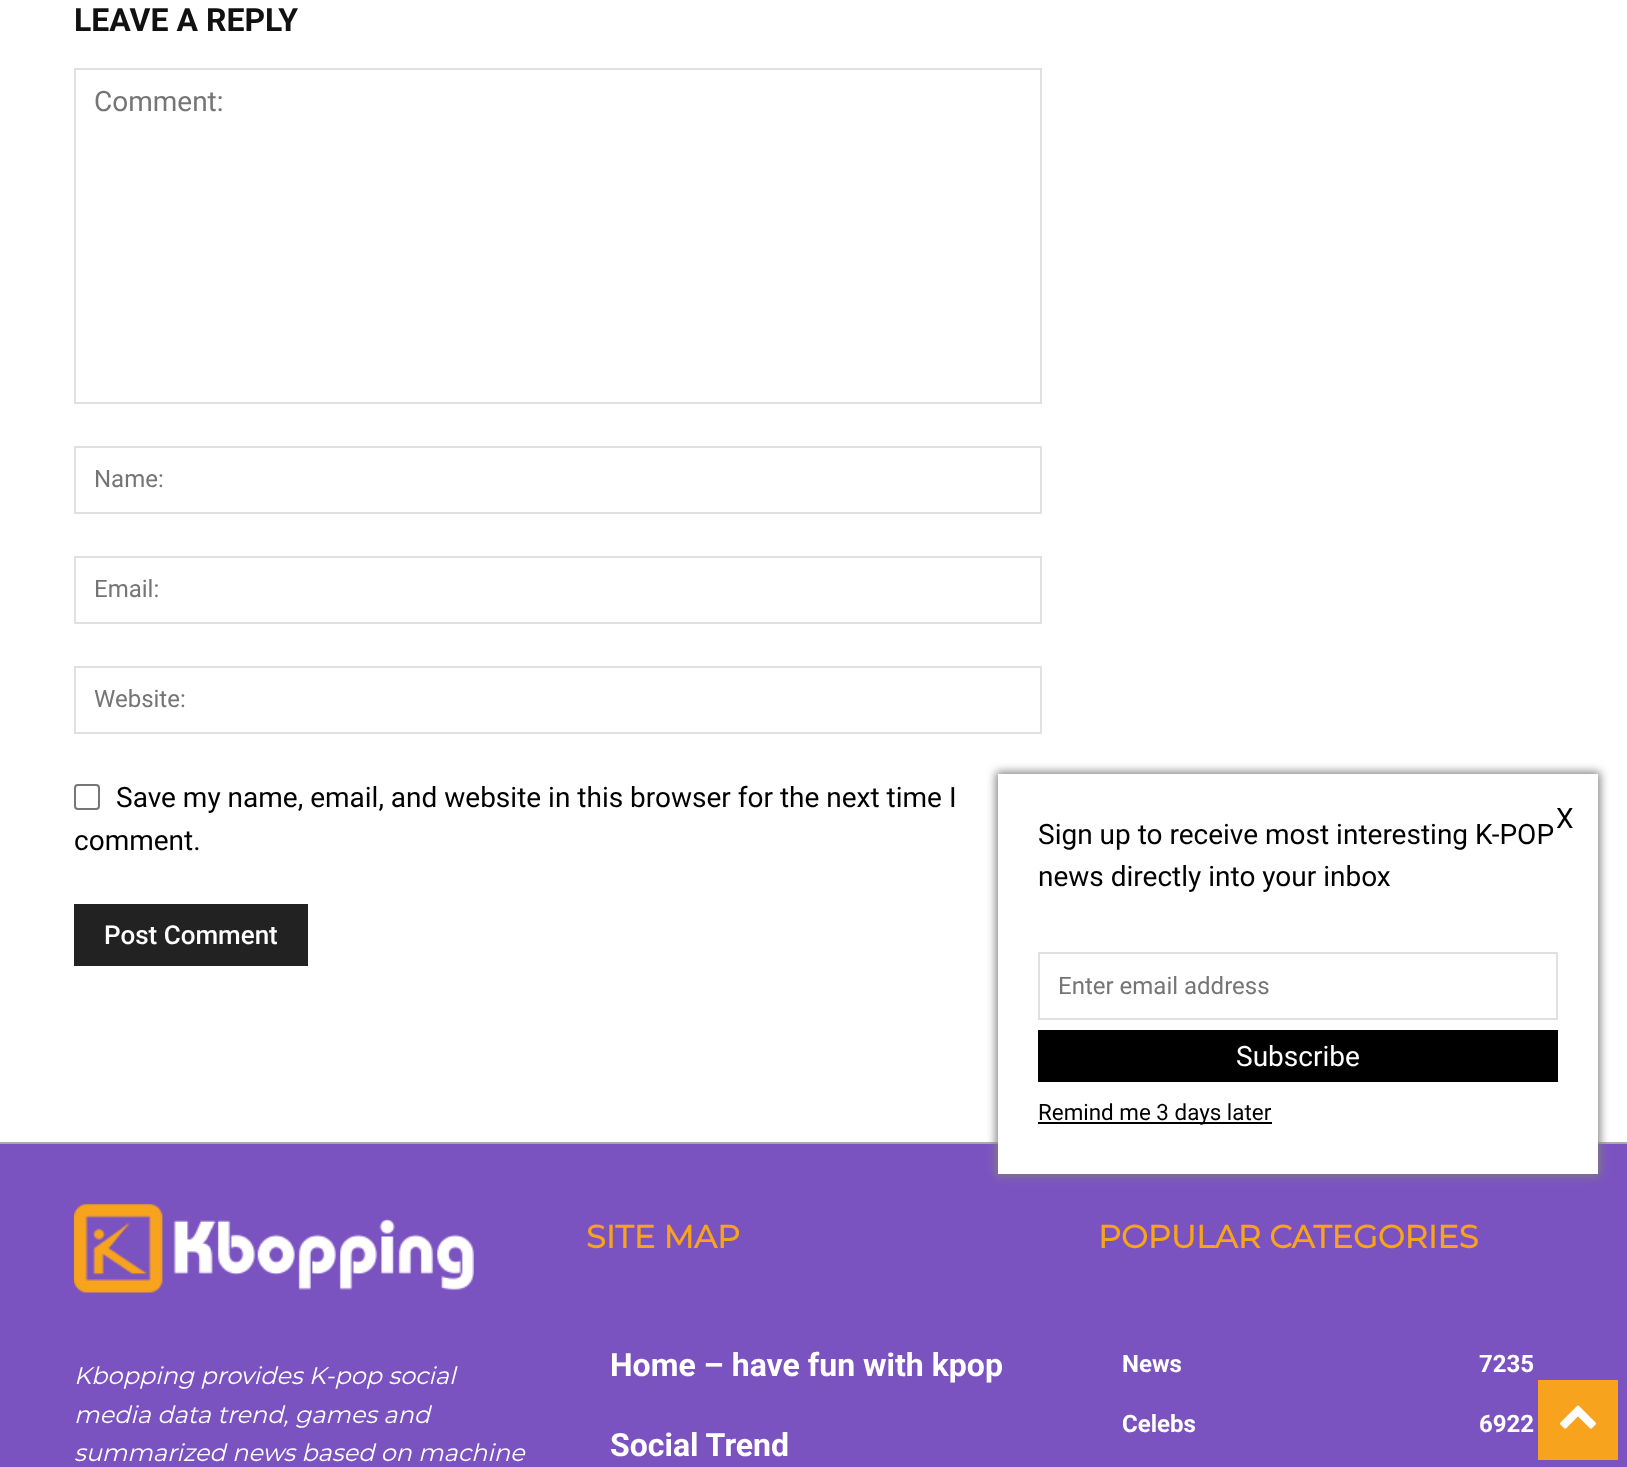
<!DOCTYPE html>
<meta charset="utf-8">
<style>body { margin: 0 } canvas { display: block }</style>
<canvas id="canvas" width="1627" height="1467"></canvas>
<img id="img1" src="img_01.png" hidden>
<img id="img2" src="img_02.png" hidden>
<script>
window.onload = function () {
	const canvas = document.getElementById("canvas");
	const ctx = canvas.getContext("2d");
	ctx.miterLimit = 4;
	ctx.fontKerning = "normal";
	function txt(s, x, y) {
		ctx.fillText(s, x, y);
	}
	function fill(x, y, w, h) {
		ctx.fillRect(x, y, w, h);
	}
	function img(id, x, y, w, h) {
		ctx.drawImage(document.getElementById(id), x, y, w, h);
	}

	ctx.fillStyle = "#FFFFFF";
	fill(0, 0, 1627, 1467);
	ctx.strokeStyle = "#E1E1E1";
	ctx.lineWidth = 2;
	ctx.strokeRect(75, 69, 966, 334);
	ctx.strokeRect(75, 447, 966, 66);
	ctx.strokeRect(75, 557, 966, 66);
	ctx.strokeRect(75, 667, 966, 66);
	ctx.beginPath();
	ctx.roundRect(75, 785, 24, 24, 3);
	ctx.strokeStyle = "#767676";
	ctx.stroke();
	ctx.fillStyle = "#222222";
	fill(74, 904, 234, 62);
	ctx.fillStyle = "#7B53C1";
	fill(0, 1144, 1627, 323);
	ctx.fillStyle = "#AAAAAA";
	fill(0, 1142, 1627, 2);
	img("img1", 74, 1203, 400, 90);
	ctx.fillStyle = "#808080";
	ctx.filter = "blur(5px)";
	ctx.beginPath();
	ctx.rect(996, 772, 604, 404);
	ctx.fill();
	ctx.filter = "none";
	ctx.fillStyle = "#FFFFFF";
	fill(998, 774, 600, 400);
	ctx.strokeStyle = "#E1E1E1";
	ctx.strokeRect(1039, 953, 518, 66);
	ctx.fillStyle = "#000000";
	fill(1038, 1030, 520, 52);
	fill(1038, 1122, 234, 2);
	ctx.fillStyle = "#F7A31D";
	fill(1538, 1380, 80, 80);
	img("img2", 1560, 1405, 36, 24);
	ctx.font = "bold 32px Roboto";
	ctx.fillStyle = "#111111";
	txt("LEAVE A REPLY", 74, 31);
	ctx.font = "28px Roboto";
	ctx.fillStyle = "#757575";
	txt("Comment:", 94, 111);
	ctx.font = "24px Roboto";
	txt("Name:", 94, 487);
	txt("Email:", 94, 597);
	txt("Website:", 94, 707);
	ctx.font = "28px Roboto";
	ctx.fillStyle = "#000000";
	txt("Save my name, email, and website in this browser for the next time I", 116, 807);
	txt("comment.", 74, 850);
	ctx.font = "500 26px Roboto";
	ctx.fillStyle = "#FFFFFF";
	txt("Post Comment", 104, 944);
	ctx.font = "italic 100 24px Montserrat";
	txt("Kbopping provides K-pop social", 74, 1384);
	txt("media data trend, games and", 74, 1423);
	txt("summarized news based on machine", 74, 1461);
	ctx.font = "bold 32px Montserrat";
	ctx.fillStyle = "#F7A31D";
	txt("SITE MAP", 586, 1248);
	ctx.font = "bold 32px Roboto";
	ctx.fillStyle = "#FFFFFF";
	txt("Home – have fun with kpop", 610, 1376);
	txt("Social Trend", 610, 1456);
	ctx.font = "bold 32px Montserrat";
	ctx.fillStyle = "#F7A31D";
	txt("POPULAR CATEGORIES", 1098, 1248);
	ctx.font = "bold 24px Roboto";
	ctx.fillStyle = "#FFFFFF";
	txt("News", 1122, 1372);
	txt("7235", 1479, 1372);
	txt("Celebs", 1122, 1432);
	txt("6922", 1479, 1432);
	ctx.font = "28px Roboto";
	ctx.fillStyle = "#000000";
	txt("X", 1556, 828);
	txt("Sign up to receive most interesting K-POP", 1038, 844);
	txt("news directly into your inbox", 1038, 886);
	ctx.font = "24px Roboto";
	ctx.fillStyle = "#757575";
	txt("Enter email address", 1058, 994);
	ctx.font = "28px Roboto";
	ctx.fillStyle = "#FFFFFF";
	txt("Subscribe", 1236, 1066);
	ctx.font = "22.4px Roboto";
	ctx.fillStyle = "#000000";
	txt("Remind me 3 days later", 1038, 1120);
};
</script>
